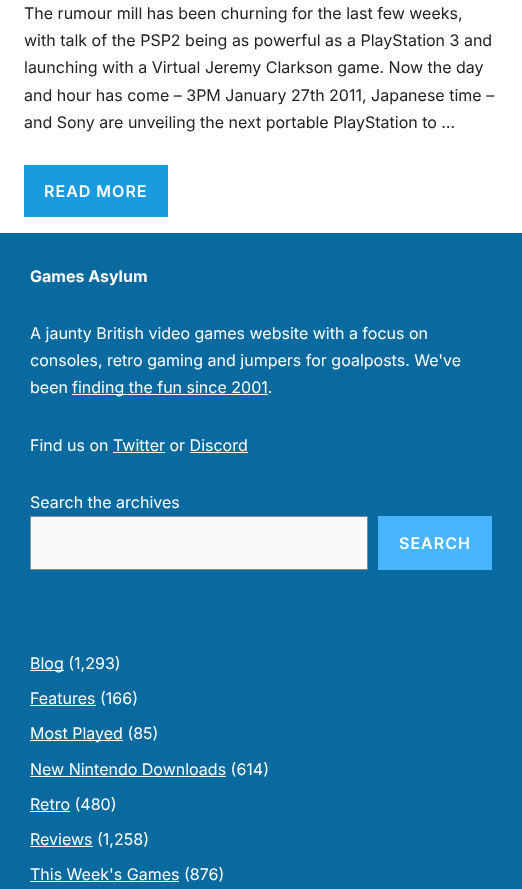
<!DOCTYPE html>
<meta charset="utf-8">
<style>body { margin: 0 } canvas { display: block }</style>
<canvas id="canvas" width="522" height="889"></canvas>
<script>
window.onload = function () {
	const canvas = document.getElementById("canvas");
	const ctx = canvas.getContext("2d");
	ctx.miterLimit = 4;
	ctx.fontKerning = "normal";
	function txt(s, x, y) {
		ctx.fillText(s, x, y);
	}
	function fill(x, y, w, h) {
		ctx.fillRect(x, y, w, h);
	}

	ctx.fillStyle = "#FFFFFF";
	fill(0, 0, 522, 889);
	ctx.fillStyle = "#1A9ADF";
	fill(24, 165, 144, 52);
	ctx.fillStyle = "#096AA0";
	fill(0, 233, 522, 656);
	ctx.fillStyle = "#FFFFFF";
	fill(72, 394, 196, 1);
	fill(113, 452, 52, 1);
	fill(190, 452, 58, 1);
	ctx.fillStyle = "#FAFAFA";
	ctx.beginPath();
	ctx.rect(30.5, 516.5, 337, 53);
	ctx.fill();
	ctx.strokeStyle = "#888888";
	ctx.stroke();
	ctx.fillStyle = "#47B5FF";
	fill(378, 516, 114, 54);
	ctx.fillStyle = "#FFFFFF";
	fill(30, 670, 34, 1);
	fill(30, 705, 66, 1);
	fill(30, 740, 93, 1);
	fill(30, 776, 196, 1);
	fill(30, 811, 40, 1);
	fill(30, 846, 63, 1);
	fill(30, 881, 149, 1);
	ctx.font = "16px Inter";
	ctx.fillStyle = "#222222";
	txt("The rumour mill has been churning for the last few weeks,", 24, 19);
	txt("with talk of the PSP2 being as powerful as a PlayStation 3 and", 24, 46);
	txt("launching with a Virtual Jeremy Clarkson game. Now the day", 24, 73);
	txt("and hour has come – 3PM January 27th 2011, Japanese time –", 24, 101);
	txt("and Sony are unveiling the next portable PlayStation to …", 24, 128);
	ctx.letterSpacing = "1px";
	ctx.font = "600 16px Inter";
	ctx.fillStyle = "#FFFFFF";
	txt("READ MORE", 44, 197);
	ctx.letterSpacing = "0px";
	ctx.font = "bold 16px Inter";
	txt("Games Asylum", 30, 282);
	ctx.font = "16px Inter";
	txt("A jaunty British video games website with a focus on", 30, 339);
	txt("consoles, retro gaming and jumpers for goalposts. We've", 30, 366);
	txt("been", 30, 393);
	txt("finding the fun since 2001.", 72, 393);
	txt("Find us on Twitter or Discord", 30, 451);
	txt("Search the archives", 30, 508);
	ctx.letterSpacing = "1px";
	ctx.font = "600 16px Inter";
	txt("SEARCH", 399, 549);
	ctx.letterSpacing = "0px";
	ctx.font = "16px Inter";
	txt("Blog (1,293)", 30, 669);
	txt("Features (166)", 30, 704);
	txt("Most Played (85)", 30, 739);
	txt("New Nintendo Downloads (614)", 30, 775);
	txt("Retro (480)", 30, 810);
	txt("Reviews (1,258)", 30, 845);
	txt("This Week's Games (876)", 30, 880);
};
</script>
